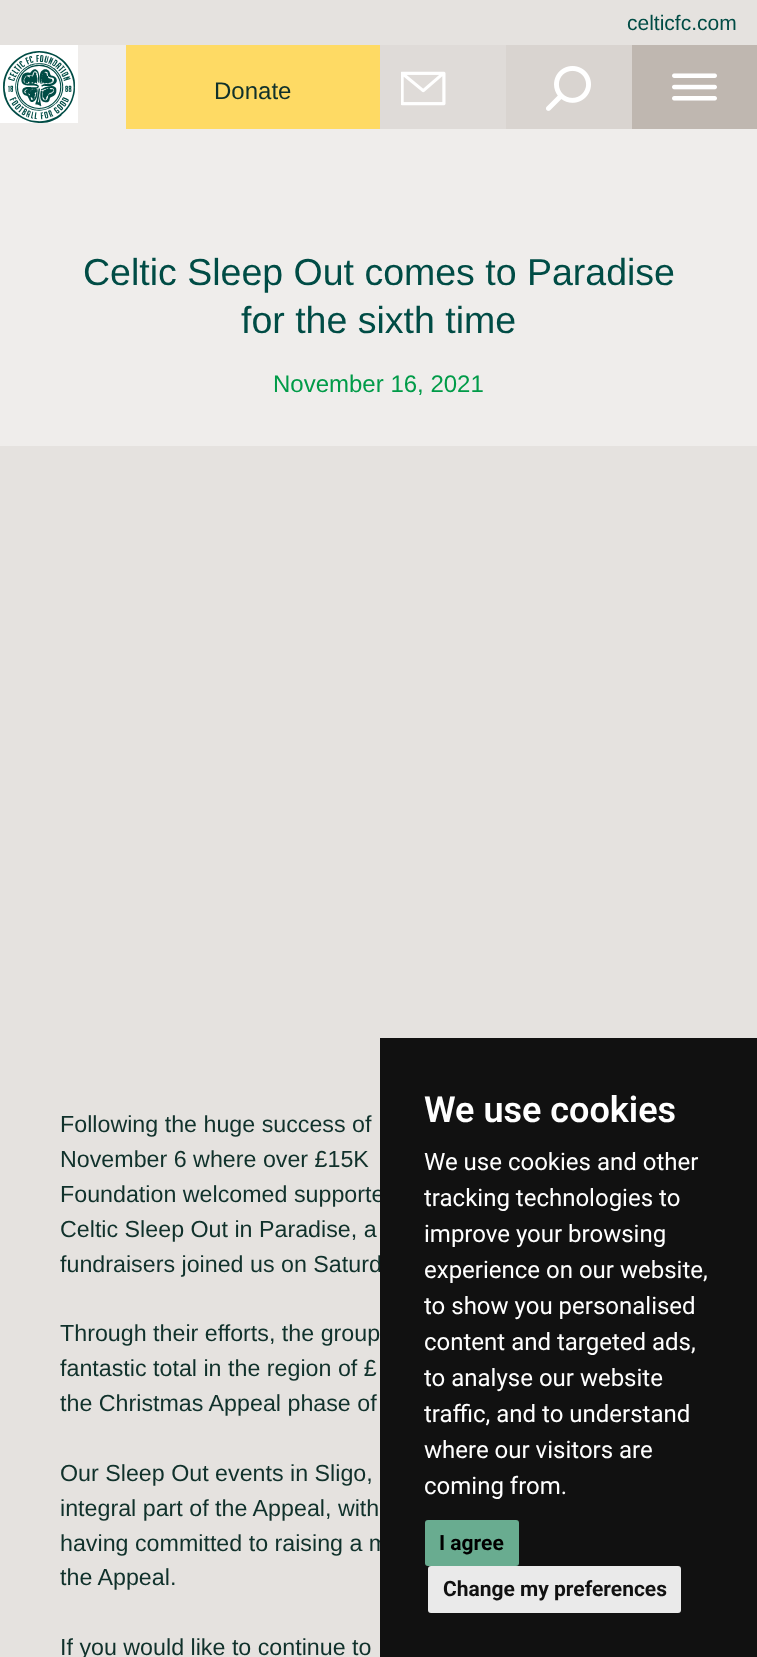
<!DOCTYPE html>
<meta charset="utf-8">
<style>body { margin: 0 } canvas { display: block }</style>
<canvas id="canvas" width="757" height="1657"></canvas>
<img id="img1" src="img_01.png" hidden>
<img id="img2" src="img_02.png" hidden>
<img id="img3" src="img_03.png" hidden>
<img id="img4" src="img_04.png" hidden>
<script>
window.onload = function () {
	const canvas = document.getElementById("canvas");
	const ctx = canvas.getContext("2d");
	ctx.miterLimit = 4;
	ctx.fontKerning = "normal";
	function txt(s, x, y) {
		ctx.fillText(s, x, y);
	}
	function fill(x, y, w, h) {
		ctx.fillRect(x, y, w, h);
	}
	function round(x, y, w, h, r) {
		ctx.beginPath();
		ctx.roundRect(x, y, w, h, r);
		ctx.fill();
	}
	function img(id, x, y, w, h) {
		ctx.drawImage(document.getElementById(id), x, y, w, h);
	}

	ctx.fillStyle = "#EFEDEB";
	fill(0, 0, 757, 1657);
	ctx.fillStyle = "#E5E2DF";
	fill(0, 0, 757, 45);
	ctx.fillStyle = "#FFFFFF";
	fill(0, 45, 78, 78);
	img("img1", 3, 51, 72, 72);
	ctx.fillStyle = "#FEDA64";
	fill(126, 45, 254, 84);
	ctx.fillStyle = "#DFDBD8";
	fill(380, 45, 126, 84);
	img("img2", 401, 71, 45, 35);
	ctx.fillStyle = "#D9D4D0";
	fill(506, 45, 126, 84);
	img("img3", 546, 66, 45, 45);
	ctx.fillStyle = "#BFB7B0";
	fill(632, 45, 125, 84);
	img("img4", 672, 73, 45, 28);
	ctx.fillStyle = "#E5E2DF";
	fill(0, 446, 757, 1211);
	ctx.font = "21px Liberation Sans";
	ctx.fillStyle = "#004C45";
	txt("celticfc.com", 627, 30);
	ctx.font = "24px Liberation Sans";
	ctx.fillStyle = "#10312B";
	txt("Donate", 214, 99);
	ctx.font = "37.5px Liberation Sans";
	ctx.fillStyle = "#004C45";
	txt("Celtic Sleep Out comes to Paradise", 83, 285);
	txt("for the sixth time", 241, 333);
	ctx.font = "24px Liberation Sans";
	ctx.fillStyle = "#009B48";
	txt("November 16, 2021", 273, 392);
	ctx.font = "23.25px Liberation Sans";
	ctx.fillStyle = "#10312B";
	txt("Following the huge success of", 60, 1132);
	txt("November 6 where over £15K", 60, 1167);
	txt("Foundation welcomed supporte", 60, 1202);
	txt("Celtic Sleep Out in Paradise, a", 60, 1237);
	txt("fundraisers joined us on Saturd", 60, 1272);
	txt("Through their efforts, the group", 60, 1341);
	txt("fantastic total in the region of £", 60, 1376);
	txt("the Christmas Appeal phase of", 60, 1411);
	txt("Our Sleep Out events in Sligo,", 60, 1481);
	txt("integral part of the Appeal, with", 60, 1516);
	txt("having committed to raising a m", 60, 1551);
	txt("the Appeal.", 60, 1585);
	txt("If you would like to continue to", 60, 1655);
	ctx.fillStyle = "#111111";
	fill(380, 1038, 377, 619);
	ctx.font = "600 36px Roboto";
	ctx.fillStyle = "#FFFFFF";
	txt("We use cookies", 424, 1122);
	ctx.font = "24px Roboto";
	txt("We use cookies and other", 424, 1170);
	txt("tracking technologies to", 424, 1206);
	txt("improve your browsing", 424, 1242);
	txt("experience on our website,", 424, 1278);
	txt("to show you personalised", 424, 1314);
	txt("content and targeted ads,", 424, 1350);
	txt("to analyse our website", 424, 1386);
	txt("traffic, and to understand", 424, 1422);
	txt("where our visitors are", 424, 1458);
	txt("coming from.", 424, 1494);
	ctx.fillStyle = "#69AC90";
	round(425, 1520, 94, 46, 3);
	ctx.font = "bold 21px Roboto";
	ctx.fillStyle = "#000000";
	txt("I agree", 439, 1550);
	ctx.fillStyle = "#EAEAEA";
	round(428, 1566, 253, 47, 3);
	ctx.fillStyle = "#111111";
	txt("Change my preferences", 443, 1596);
};
</script>
